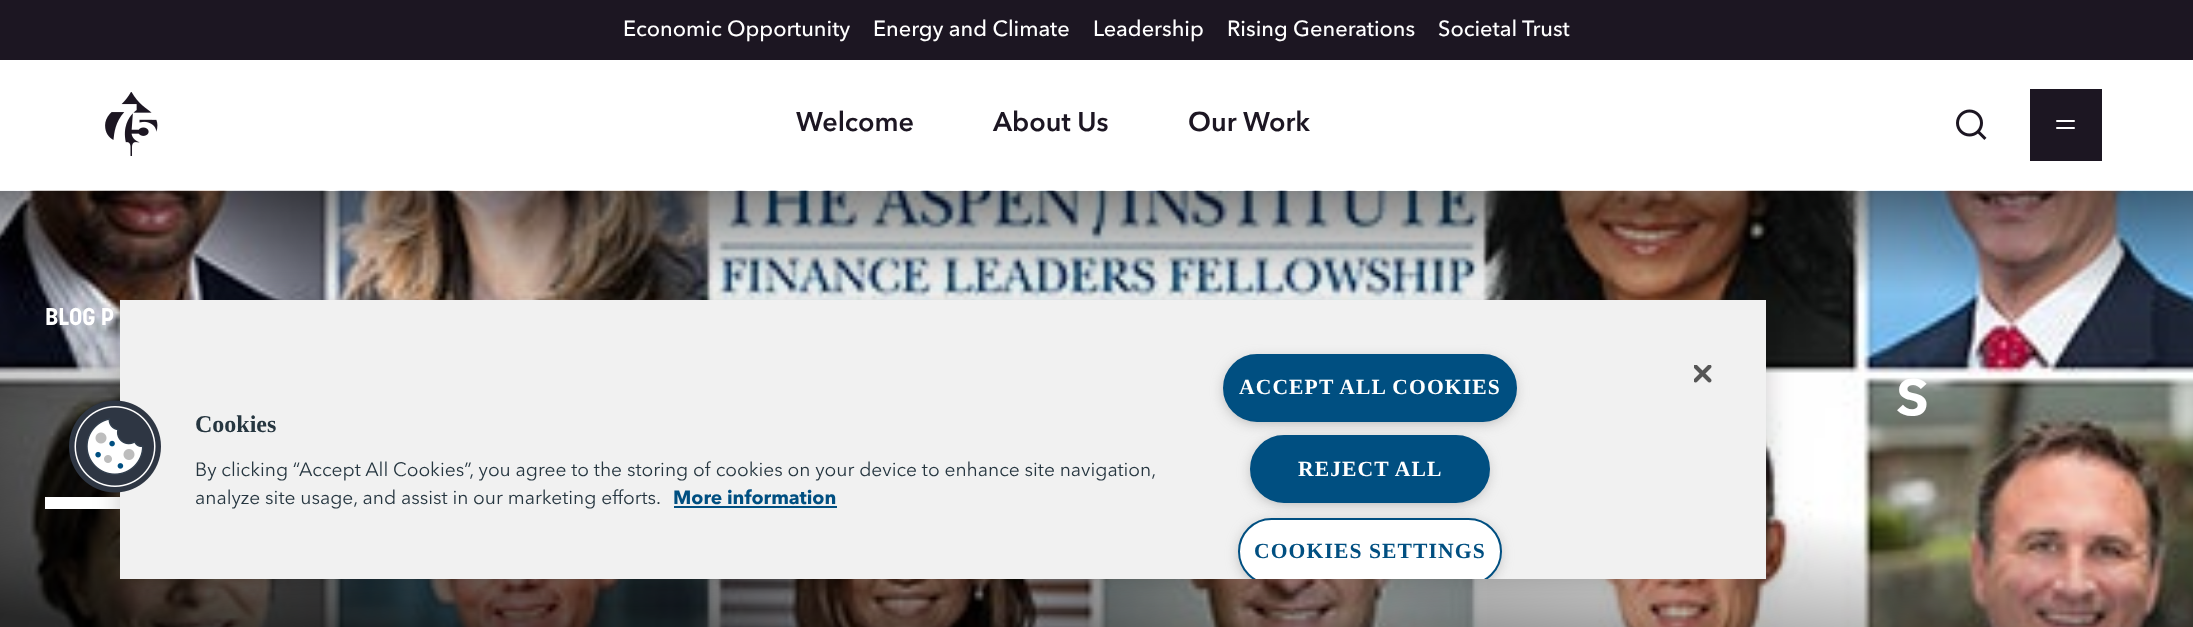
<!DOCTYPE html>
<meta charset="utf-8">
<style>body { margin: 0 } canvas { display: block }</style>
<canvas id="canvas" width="2193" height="627"></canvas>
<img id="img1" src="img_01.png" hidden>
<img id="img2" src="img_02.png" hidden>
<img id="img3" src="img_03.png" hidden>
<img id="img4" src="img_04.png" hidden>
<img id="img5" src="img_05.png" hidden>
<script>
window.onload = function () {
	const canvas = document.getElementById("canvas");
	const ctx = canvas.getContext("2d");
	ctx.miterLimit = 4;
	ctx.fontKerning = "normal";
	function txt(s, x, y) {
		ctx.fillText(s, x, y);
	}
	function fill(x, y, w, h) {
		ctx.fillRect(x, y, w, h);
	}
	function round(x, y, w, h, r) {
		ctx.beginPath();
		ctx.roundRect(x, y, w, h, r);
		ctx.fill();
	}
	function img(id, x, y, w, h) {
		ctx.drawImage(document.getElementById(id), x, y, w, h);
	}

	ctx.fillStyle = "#FFFFFF";
	fill(0, 0, 2193, 627);
	ctx.fillStyle = "#1C1622";
	fill(0, 0, 2193, 60);
	img("img1", 105, 92, 53, 64);
	img("img2", 1956, 109, 31, 31);
	fill(2030, 89, 72, 72);
	ctx.fillStyle = "#FFFFFF";
	round(2056, 120, 19, 2, 1);
	round(2056, 127, 19, 2, 1);
	img("img3", 0, 190, 2193, 437);
	fill(45, 497, 75, 12);
	ctx.fillStyle = "rgba(0, 0, 0, 0.2)";
	ctx.filter = "blur(13.5px)";
	ctx.beginPath();
	ctx.rect(120, 300, 1646, 279);
	ctx.fill();
	ctx.filter = "none";
	ctx.fillStyle = "#F1F1F1";
	fill(120, 300, 1646, 279);
	img("img4", 69, 400, 92, 93);
	img("img5", 1694, 365, 18, 18);
	ctx.fillStyle = "#004F81";
	fill(674, 506, 163, 2);
	ctx.fillStyle = "#999999";
	ctx.filter = "blur(7.5px)";
	ctx.beginPath();
	ctx.roundRect(1227, 362, 285, 58, 29);
	ctx.fill();
	ctx.filter = "none";
	ctx.fillStyle = "#004F81";
	ctx.beginPath();
	ctx.roundRect(1224, 355, 292, 66, 33);
	ctx.fill();
	ctx.strokeStyle = "#004F81";
	ctx.lineWidth = 2;
	ctx.stroke();
	ctx.fillStyle = "#999999";
	ctx.filter = "blur(7.5px)";
	ctx.beginPath();
	ctx.roundRect(1254, 443, 231, 58, 29);
	ctx.fill();
	ctx.filter = "none";
	ctx.fillStyle = "#004F81";
	ctx.beginPath();
	ctx.roundRect(1251, 436, 238, 66, 33);
	ctx.fill();
	ctx.stroke();
	ctx.save();
	ctx.beginPath();
	ctx.rect(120, 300, 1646, 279);
	ctx.clip();
	ctx.fillStyle = "#999999";
	ctx.filter = "blur(7.5px)";
	ctx.beginPath();
	ctx.roundRect(1242, 525, 255, 59, 29.5);
	ctx.fill();
	ctx.filter = "none";
	ctx.restore();
	ctx.save();
	ctx.beginPath();
	ctx.rect(120, 300, 1646, 279);
	ctx.clip();
	ctx.fillStyle = "#FFFFFF";
	ctx.beginPath();
	ctx.roundRect(1239, 519, 262, 65, 32.5);
	ctx.fill();
	ctx.stroke();
	ctx.restore();
	ctx.font = "500 21.75px Avenir Next";
	ctx.fillStyle = "#FFFFFF";
	txt("Economic Opportunity", 623, 36);
	txt("Energy and Climate", 873, 36);
	txt("Leadership", 1093, 36);
	txt("Rising Generations", 1227, 36);
	txt("Societal Trust", 1438, 36);
	ctx.font = "600 27px Avenir Next";
	ctx.fillStyle = "#1C1622";
	txt("Welcome", 796, 131);
	txt("About Us", 993, 131);
	txt("Our Work", 1188, 131);
	ctx.font = "bold 24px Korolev";
	ctx.fillStyle = "#FFFFFF";
	txt("BLOG P", 45, 325);
	ctx.font = "600 74px Avenir Next";
	txt("s", 1896, 415);
	ctx.font = "bold 24px Liberation Serif";
	ctx.fillStyle = "#263640";
	txt("Cookies", 195, 432);
	ctx.font = "19.2px Avenir Next";
	txt("By clicking “Accept All Cookies”, you agree to the storing of cookies on your device to enhance site navigation,", 195, 476);
	txt("analyze site usage, and assist in our marketing efforts.", 195, 504);
	ctx.font = "bold 19.2px Avenir Next";
	ctx.fillStyle = "#004F81";
	txt("More information", 673, 504);
	ctx.letterSpacing = "1.1px";
	ctx.font = "bold 21.6px Liberation Serif";
	ctx.fillStyle = "#FFFFFF";
	txt("ACCEPT ALL COOKIES", 1239, 394);
	txt("REJECT ALL", 1298, 476);
	ctx.fillStyle = "#004F81";
	txt("COOKIES SETTINGS", 1254, 558);
};
</script>
